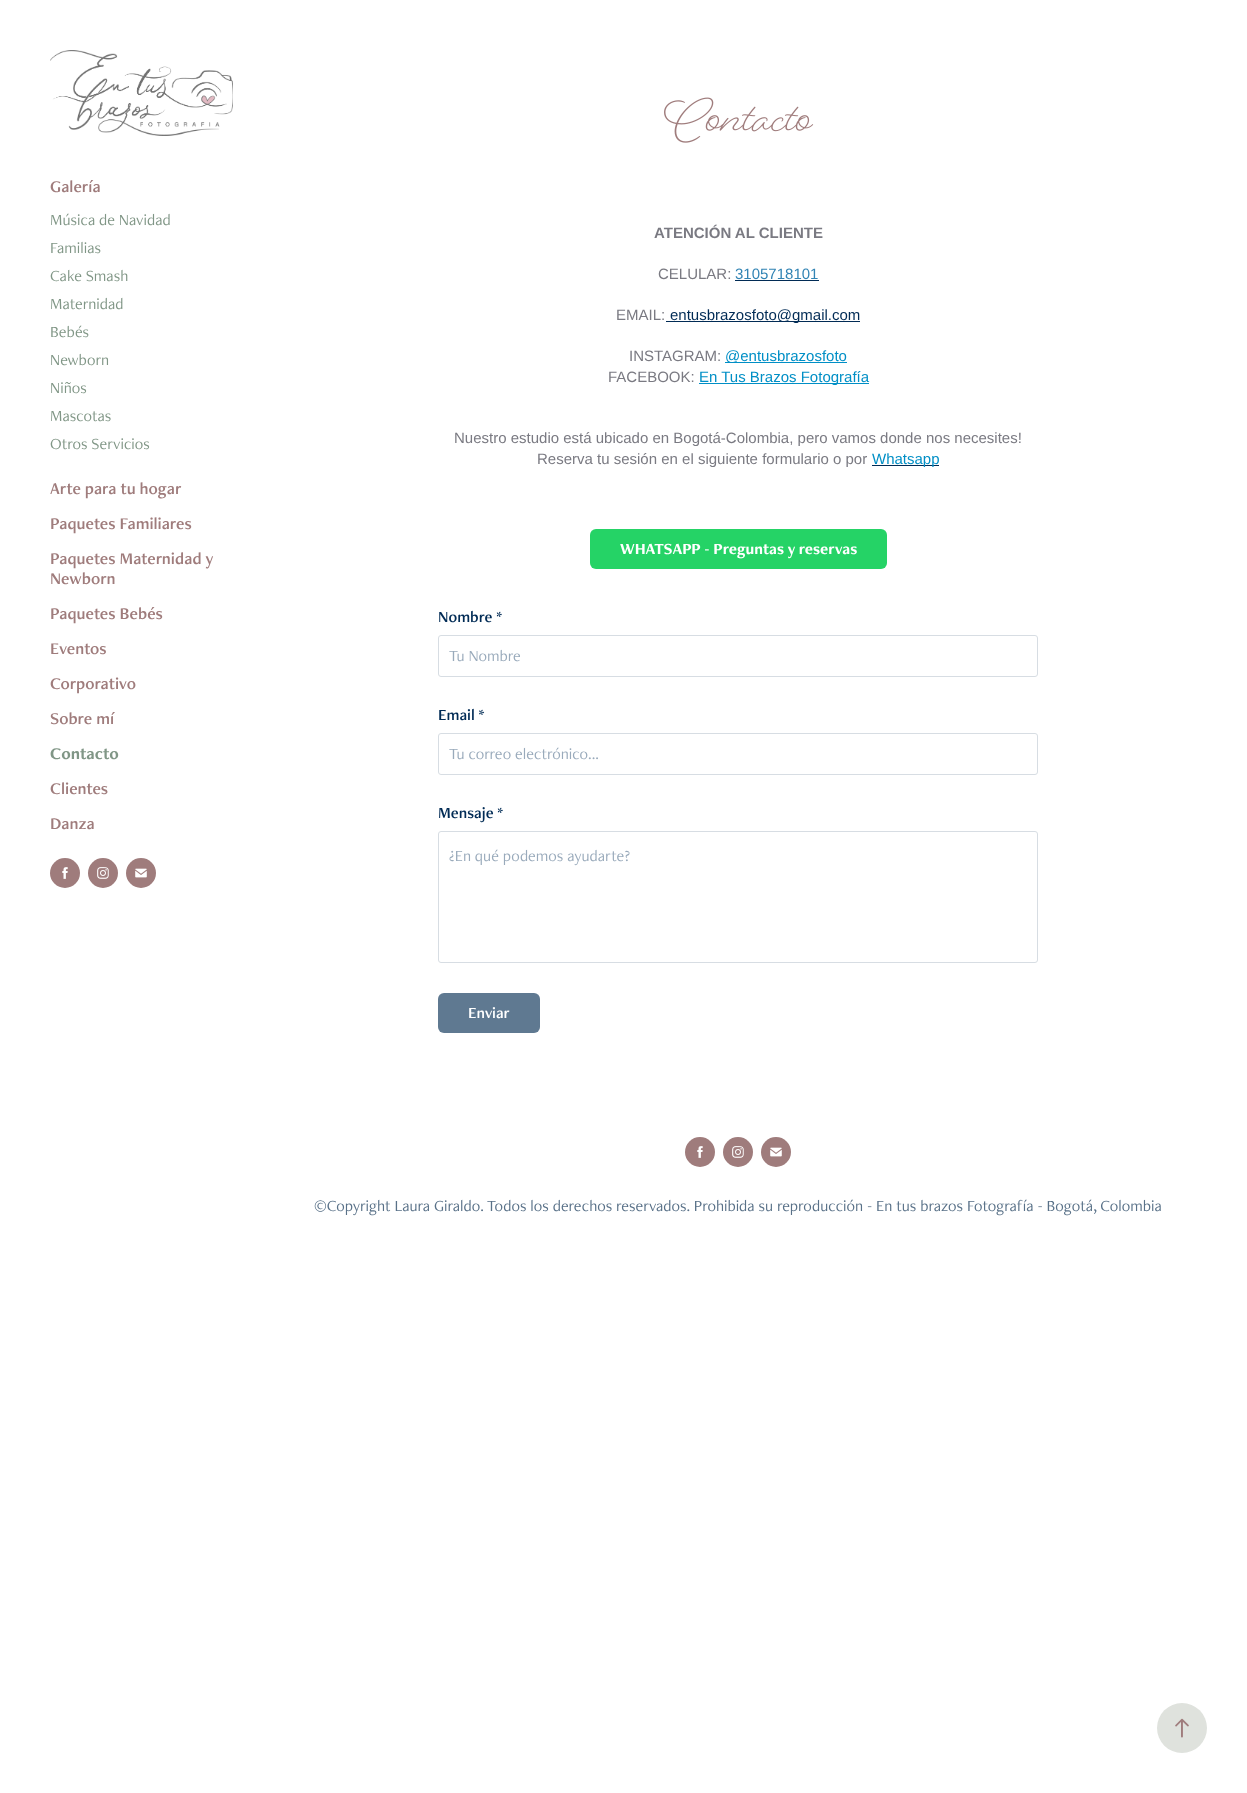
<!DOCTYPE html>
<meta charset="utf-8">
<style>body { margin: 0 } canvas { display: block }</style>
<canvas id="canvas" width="1247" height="1793"></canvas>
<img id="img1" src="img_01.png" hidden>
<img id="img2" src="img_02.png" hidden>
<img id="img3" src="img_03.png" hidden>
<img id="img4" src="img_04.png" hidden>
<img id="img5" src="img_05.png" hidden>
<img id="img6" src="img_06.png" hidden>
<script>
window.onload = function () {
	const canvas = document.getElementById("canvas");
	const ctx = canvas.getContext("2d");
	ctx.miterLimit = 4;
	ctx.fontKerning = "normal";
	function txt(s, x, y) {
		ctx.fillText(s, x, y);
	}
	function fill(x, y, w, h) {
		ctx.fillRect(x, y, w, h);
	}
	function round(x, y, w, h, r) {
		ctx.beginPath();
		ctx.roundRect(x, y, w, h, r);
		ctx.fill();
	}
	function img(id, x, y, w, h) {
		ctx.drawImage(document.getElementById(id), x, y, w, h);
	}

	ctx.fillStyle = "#FFFFFF";
	fill(0, 0, 1247, 1793);
	img("img1", 50, 50, 183, 86);
	ctx.fillStyle = "#9F7C7C";
	ctx.beginPath();
	ctx.arc(65, 873, 15, 0, Math.PI * 2);
	ctx.fill();
	img("img2", 62, 867, 6, 12);
	ctx.beginPath();
	ctx.arc(103, 873, 15, 0, Math.PI * 2);
	ctx.fill();
	img("img3", 97, 867, 12, 12);
	ctx.beginPath();
	ctx.arc(141, 873, 15, 0, Math.PI * 2);
	ctx.fill();
	img("img4", 135, 868, 12, 10);
	img("img5", 664, 97, 150, 46);
	ctx.fillStyle = "#012B55";
	fill(735, 280, 84, 1);
	fill(666, 321, 194, 1);
	ctx.fillStyle = "#008FC6";
	fill(725, 362, 122, 1);
	fill(699, 383, 170, 1);
	ctx.fillStyle = "#012B55";
	fill(872, 465, 67, 1);
	ctx.fillStyle = "#25D366";
	round(590, 529, 297, 40, 6);
	ctx.beginPath();
	ctx.roundRect(438.5, 635.5, 599, 41, 2.5);
	ctx.strokeStyle = "#D7DDE3";
	ctx.stroke();
	ctx.beginPath();
	ctx.roundRect(438.5, 733.5, 599, 41, 2.5);
	ctx.stroke();
	ctx.beginPath();
	ctx.roundRect(438.5, 831.5, 599, 131, 2.5);
	ctx.stroke();
	ctx.fillStyle = "#5F7991";
	round(438, 993, 102, 40, 6);
	ctx.fillStyle = "#DFE2DD";
	ctx.beginPath();
	ctx.arc(1182, 1728, 25, 0, Math.PI * 2);
	ctx.fill();
	img("img6", 1175, 1718, 14, 20);
	ctx.fillStyle = "#9F7C7C";
	ctx.beginPath();
	ctx.arc(700, 1152, 15, 0, Math.PI * 2);
	ctx.fill();
	img("img2", 697, 1146, 6, 12);
	ctx.beginPath();
	ctx.arc(738, 1152, 15, 0, Math.PI * 2);
	ctx.fill();
	img("img3", 732, 1146, 12, 12);
	ctx.beginPath();
	ctx.arc(776, 1152, 15, 0, Math.PI * 2);
	ctx.fill();
	img("img4", 770, 1147, 12, 10);
	ctx.font = "17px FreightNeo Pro";
	txt("Galería", 50, 192);
	ctx.font = "16px 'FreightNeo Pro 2'";
	ctx.fillStyle = "#809686";
	txt("Música de Navidad", 50, 225);
	txt("Familias", 50, 253);
	txt("Cake Smash", 50, 281);
	txt("Maternidad", 50, 309);
	txt("Bebés", 50, 337);
	txt("Newborn", 50, 365);
	txt("Niños", 50, 393);
	txt("Mascotas", 50, 421);
	txt("Otros Servicios", 50, 449);
	ctx.font = "17px FreightNeo Pro";
	ctx.fillStyle = "#9F7C7C";
	txt("Arte para tu hogar", 50, 494);
	txt("Paquetes Familiares", 50, 529);
	txt("Paquetes Maternidad y", 50, 564);
	txt("Newborn", 50, 584);
	txt("Paquetes Bebés", 50, 619);
	txt("Eventos", 50, 654);
	txt("Corporativo", 50, 689);
	txt("Sobre mí", 50, 724);
	ctx.font = "bold 17px FreightNeo Pro";
	ctx.fillStyle = "#809686";
	txt("Contacto", 50, 759);
	ctx.font = "17px FreightNeo Pro";
	ctx.fillStyle = "#9F7C7C";
	txt("Clientes", 50, 794);
	txt("Danza", 50, 829);
	ctx.font = "bold 15px Liberation Sans";
	ctx.fillStyle = "#7A7A82";
	txt("ATENCIÓN AL CLIENTE", 654, 238);
	ctx.font = "15px Liberation Sans";
	txt("CELULAR:", 658, 279);
	ctx.fillStyle = "#3284B4";
	txt("3105718101", 735, 279);
	ctx.fillStyle = "#7A7A82";
	txt("EMAIL:", 616, 320);
	ctx.fillStyle = "#012B55";
	txt("entusbrazosfoto@gmail.com", 670, 320);
	ctx.fillStyle = "#7A7A82";
	txt("INSTAGRAM:", 629, 361);
	ctx.fillStyle = "#008FC6";
	txt("@entusbrazosfoto", 725, 361);
	ctx.fillStyle = "#7A7A82";
	txt("FACEBOOK:", 608, 382);
	ctx.fillStyle = "#008FC6";
	txt("En Tus Brazos Fotografía", 699, 382);
	ctx.fillStyle = "#7A7A82";
	txt("Nuestro estudio está ubicado en Bogotá-Colombia, pero vamos donde nos necesites!", 454, 443);
	txt("Reserva tu sesión en el siguiente formulario o por", 537, 464);
	ctx.fillStyle = "#008FC6";
	txt("Whatsapp", 872, 464);
	ctx.font = "bold 16px FreightNeo Pro";
	ctx.fillStyle = "#FFFFFF";
	txt("WHATSAPP - Preguntas y reservas", 620, 554);
	ctx.font = "16px FreightNeo Pro";
	ctx.fillStyle = "#012B55";
	txt("Nombre *", 438, 622);
	ctx.font = "16px 'FreightNeo Pro 2'";
	ctx.fillStyle = "#99AABB";
	txt("Tu Nombre", 449, 661);
	ctx.font = "16px FreightNeo Pro";
	ctx.fillStyle = "#012B55";
	txt("Email *", 438, 720);
	ctx.font = "16px 'FreightNeo Pro 2'";
	ctx.fillStyle = "#99AABB";
	txt("Tu correo electrónico...", 449, 759);
	ctx.font = "16px FreightNeo Pro";
	ctx.fillStyle = "#012B55";
	txt("Mensaje *", 438, 818);
	ctx.font = "16px 'FreightNeo Pro 2'";
	ctx.fillStyle = "#99AABB";
	txt("¿En qué podemos ayudarte?", 449, 861);
	ctx.font = "16px FreightNeo Pro";
	ctx.fillStyle = "#FFFFFF";
	txt("Enviar", 468, 1018);
	ctx.font = "16px 'FreightNeo Pro 2'";
	ctx.fillStyle = "#597188";
	txt("©Copyright Laura Giraldo.", 314, 1211);
	txt("Todos los derechos reservados. Prohibida su reproducción - En tus brazos Fotografía - Bogotá, Colombia", 487, 1211);
};
</script>
